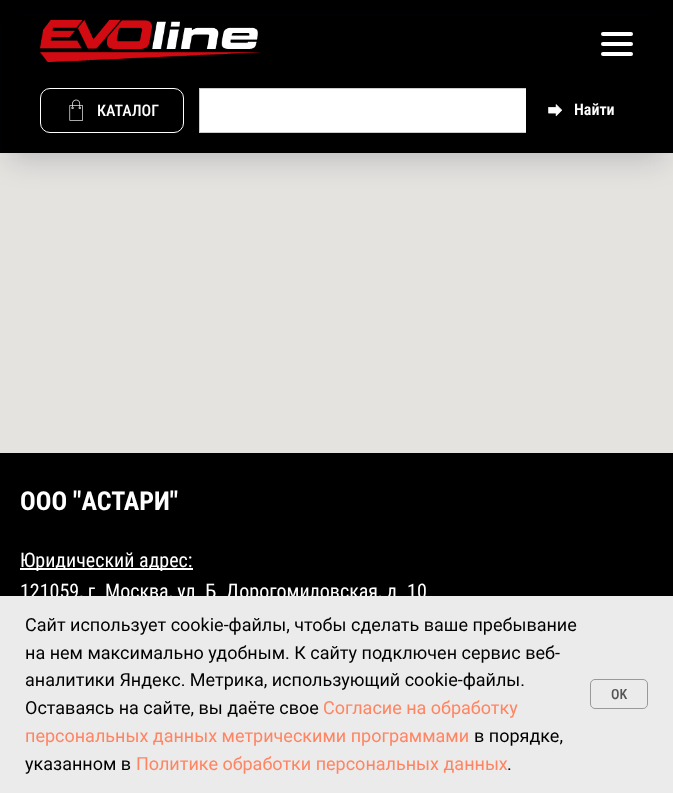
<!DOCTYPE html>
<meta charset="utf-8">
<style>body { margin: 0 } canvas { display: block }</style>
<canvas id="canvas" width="673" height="793"></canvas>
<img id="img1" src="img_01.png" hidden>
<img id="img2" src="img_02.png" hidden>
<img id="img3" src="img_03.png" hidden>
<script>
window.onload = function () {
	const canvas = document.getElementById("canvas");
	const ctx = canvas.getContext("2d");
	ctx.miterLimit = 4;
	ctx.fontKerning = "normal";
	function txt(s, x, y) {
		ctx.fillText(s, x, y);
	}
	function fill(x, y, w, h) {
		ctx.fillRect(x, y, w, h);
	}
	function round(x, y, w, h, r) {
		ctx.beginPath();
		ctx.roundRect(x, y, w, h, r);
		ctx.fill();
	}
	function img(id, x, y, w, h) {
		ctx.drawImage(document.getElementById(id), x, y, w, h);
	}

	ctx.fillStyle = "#000000";
	fill(0, 0, 673, 793);
	ctx.fillStyle = "#E5E3DF";
	fill(0, 153, 673, 300);
	ctx.fillStyle = "rgba(0, 11, 48, 0.2)";
	ctx.filter = "blur(15px)";
	ctx.beginPath();
	ctx.rect(10, 25, 653, 133);
	ctx.fill();
	ctx.filter = "none";
	ctx.fillStyle = "#000000";
	fill(1, 16, 671, 137);
	img("img1", 40, 20, 220, 42);
	ctx.fillStyle = "#FFFFFF";
	round(601, 32, 32, 4, 2);
	round(601, 42, 32, 4, 2);
	round(601, 52, 32, 4, 2);
	ctx.beginPath();
	ctx.roundRect(40.5, 88.5, 143, 44, 9.5);
	ctx.strokeStyle = "#FFFFFF";
	ctx.stroke();
	img("img2", 69, 99, 14, 22);
	fill(200, 89, 326, 43);
	ctx.fillStyle = "#CDCDCD";
	fill(199, 88, 327, 1);
	fill(199, 132, 327, 1);
	fill(199, 88, 1, 45);
	img("img3", 548, 104, 14, 13);
	ctx.fillStyle = "#FFFFFF";
	fill(20, 568, 173, 2);
	ctx.fillStyle = "rgba(0, 0, 0, 0.1)";
	ctx.filter = "blur(2.5px)";
	ctx.beginPath();
	ctx.rect(0, 596, 673, 197);
	ctx.fill();
	ctx.filter = "none";
	ctx.font = "500 16px Roboto Condensed";
	ctx.fillStyle = "#FFFFFF";
	txt("КАТАЛОГ", 97, 116);
	ctx.font = "600 16px Roboto Condensed";
	txt("Найти", 574, 115);
	ctx.font = "bold 26px Roboto Condensed";
	txt("ООО \"АСТАРИ\"", 20, 510);
	ctx.font = "20px Roboto Condensed";
	txt("Юридический адрес:", 20, 567);
	txt("121059, г. Москва, ул. Б. Дорогомиловская, д. 10", 20, 598);
	ctx.fillStyle = "#EBEBEB";
	fill(0, 596, 673, 197);
	ctx.font = "18px Roboto";
	ctx.fillStyle = "#000000";
	txt("Сайт использует cookie-файлы, чтобы сделать ваше пребывание", 25, 631);
	txt("на нем максимально удобным. К cайту подключен сервис веб-", 25, 659);
	txt("аналитики Яндекс. Метрика, использующий cookie-файлы.", 25, 686);
	txt("Оставаясь на сайте, вы даёте свое", 25, 714);
	ctx.fillStyle = "#FF8562";
	txt("Согласие на обработку", 323, 714);
	txt("персональных данных метрическими программами", 25, 742);
	ctx.fillStyle = "#000000";
	txt("в порядке,", 474, 742);
	txt("указанном в", 25, 770);
	ctx.fillStyle = "#FF8562";
	txt("Политике обработки персональных данных", 136, 770);
	ctx.fillStyle = "#000000";
	txt(".", 507, 770);
	ctx.beginPath();
	ctx.roundRect(590.5, 679.5, 57, 29, 4.5);
	ctx.strokeStyle = "#999999";
	ctx.stroke();
	ctx.font = "500 14px Roboto Condensed";
	ctx.fillStyle = "#555555";
	txt("OK", 611, 699);
};
</script>
